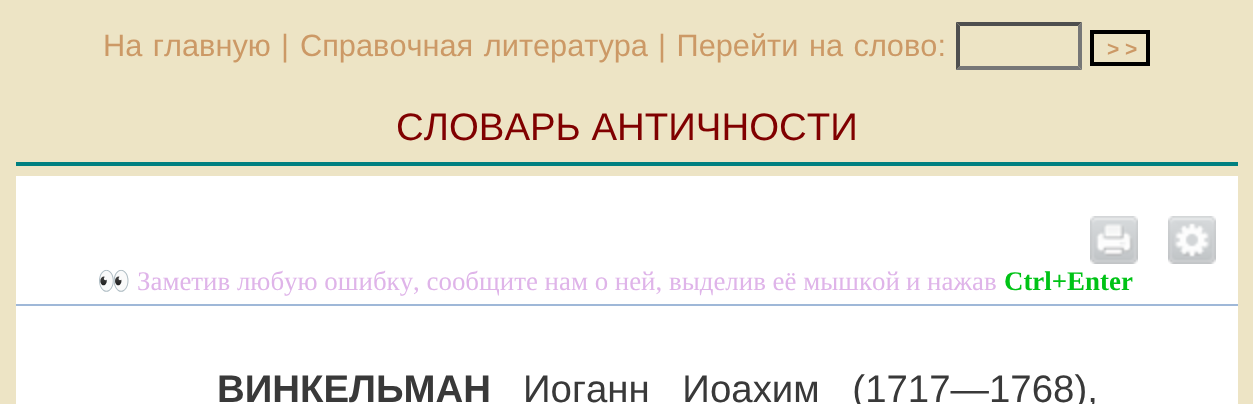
<!DOCTYPE html>
<meta charset="utf-8">
<style>body { margin: 0 } canvas { display: block }</style>
<canvas id="canvas" width="1253" height="404"></canvas>
<img id="img1" src="img_01.png" hidden>
<img id="img2" src="img_02.png" hidden>
<script>
window.onload = function () {
	const canvas = document.getElementById("canvas");
	const ctx = canvas.getContext("2d");
	ctx.miterLimit = 4;
	ctx.fontKerning = "none";
	function txt(s, x, y) {
		ctx.fillText(s, x, y);
	}
	function fill(x, y, w, h) {
		ctx.fillRect(x, y, w, h);
	}
	function img(id, x, y, w, h) {
		ctx.drawImage(document.getElementById(id), x, y, w, h);
	}

	ctx.fillStyle = "#EDE4C5";
	fill(0, 0, 1253, 404);
	ctx.fillStyle = "#4F4F4F";
	ctx.beginPath();
	ctx.moveTo(956, 22);
	ctx.lineTo(1082, 22);
	ctx.lineTo(1078, 26);
	ctx.lineTo(960, 26);
	ctx.closePath();
	ctx.fill();
	ctx.fillStyle = "#767676";
	ctx.beginPath();
	ctx.moveTo(1082, 22);
	ctx.lineTo(1082, 70);
	ctx.lineTo(1078, 66);
	ctx.lineTo(1078, 26);
	ctx.closePath();
	ctx.fill();
	ctx.beginPath();
	ctx.moveTo(1082, 70);
	ctx.lineTo(956, 70);
	ctx.lineTo(960, 66);
	ctx.lineTo(1078, 66);
	ctx.closePath();
	ctx.fill();
	ctx.fillStyle = "#4F4F4F";
	ctx.beginPath();
	ctx.moveTo(956, 70);
	ctx.lineTo(956, 22);
	ctx.lineTo(960, 26);
	ctx.lineTo(960, 66);
	ctx.closePath();
	ctx.fill();
	ctx.strokeStyle = "#000000";
	ctx.lineWidth = 4;
	ctx.strokeRect(1092, 32, 56, 32);
	ctx.fillStyle = "#008080";
	fill(16, 162, 1222, 4);
	ctx.fillStyle = "#FFFFFF";
	fill(16, 176, 1222, 228);
	img("img1", 1090, 216, 48, 48);
	img("img2", 1168, 216, 48, 48);
	ctx.fillStyle = "#9FB8D8";
	fill(16, 304, 1222, 2);
	ctx.wordSpacing = "2px";
	ctx.font = "30.75px Liberation Sans";
	ctx.fillStyle = "#CC9966";
	txt("На главную", 103, 56);
	ctx.wordSpacing = "0px";
	txt("|", 281, 56);
	ctx.wordSpacing = "2px";
	txt("Справочная литература", 300, 56);
	txt("| Перейти на слово:", 658, 56);
	ctx.wordSpacing = "0px";
	ctx.font = "bold 21px Liberation Sans";
	txt("> >", 1107, 56);
	ctx.font = "38.4px Liberation Sans";
	ctx.fillStyle = "#800000";
	txt("СЛОВАРЬ АНТИЧНОСТИ", 396, 140);
	ctx.font = "26.9px Noto Color Emoji";
	ctx.fillStyle = "#DFB4E9";
	txt("👀", 97, 290);
	ctx.font = "26.9px Liberation Serif";
	txt("Заметив любую ошибку, сообщите нам о ней, выделив её мышкой", 137, 290);
	txt("и нажав", 906, 290);
	ctx.font = "bold 26.9px Liberation Serif";
	ctx.fillStyle = "#00C316";
	txt("Ctrl+Enter", 1004, 290);
	ctx.font = "bold 38.4px Liberation Sans";
	ctx.fillStyle = "#393939";
	txt("ВИНКЕЛЬМАН", 217, 402);
	ctx.wordSpacing = "22px";
	ctx.font = "38.4px Liberation Sans";
	txt("Иоганн Иоахим (1717—", 523, 402);
	ctx.wordSpacing = "0px";
	txt("1768),", 989, 402);
};
</script>
